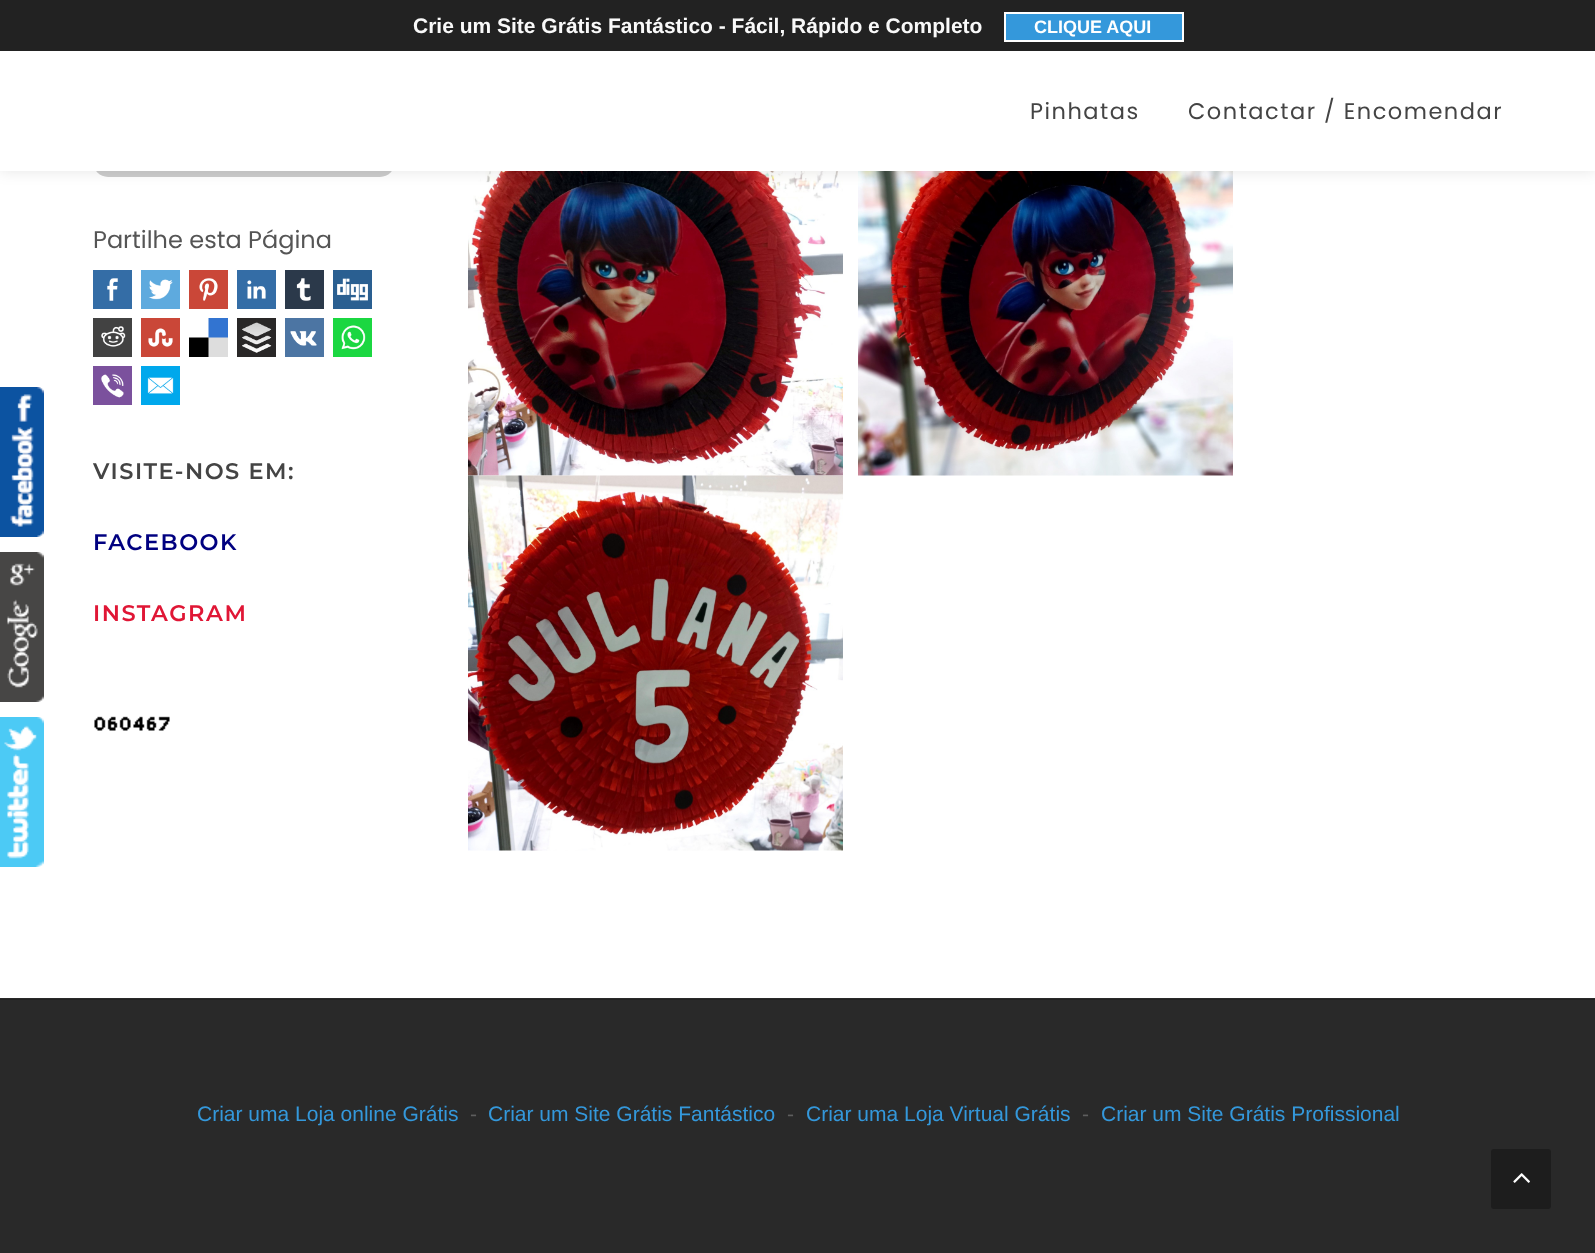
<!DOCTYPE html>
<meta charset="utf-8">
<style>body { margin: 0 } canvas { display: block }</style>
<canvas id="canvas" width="1595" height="1253"></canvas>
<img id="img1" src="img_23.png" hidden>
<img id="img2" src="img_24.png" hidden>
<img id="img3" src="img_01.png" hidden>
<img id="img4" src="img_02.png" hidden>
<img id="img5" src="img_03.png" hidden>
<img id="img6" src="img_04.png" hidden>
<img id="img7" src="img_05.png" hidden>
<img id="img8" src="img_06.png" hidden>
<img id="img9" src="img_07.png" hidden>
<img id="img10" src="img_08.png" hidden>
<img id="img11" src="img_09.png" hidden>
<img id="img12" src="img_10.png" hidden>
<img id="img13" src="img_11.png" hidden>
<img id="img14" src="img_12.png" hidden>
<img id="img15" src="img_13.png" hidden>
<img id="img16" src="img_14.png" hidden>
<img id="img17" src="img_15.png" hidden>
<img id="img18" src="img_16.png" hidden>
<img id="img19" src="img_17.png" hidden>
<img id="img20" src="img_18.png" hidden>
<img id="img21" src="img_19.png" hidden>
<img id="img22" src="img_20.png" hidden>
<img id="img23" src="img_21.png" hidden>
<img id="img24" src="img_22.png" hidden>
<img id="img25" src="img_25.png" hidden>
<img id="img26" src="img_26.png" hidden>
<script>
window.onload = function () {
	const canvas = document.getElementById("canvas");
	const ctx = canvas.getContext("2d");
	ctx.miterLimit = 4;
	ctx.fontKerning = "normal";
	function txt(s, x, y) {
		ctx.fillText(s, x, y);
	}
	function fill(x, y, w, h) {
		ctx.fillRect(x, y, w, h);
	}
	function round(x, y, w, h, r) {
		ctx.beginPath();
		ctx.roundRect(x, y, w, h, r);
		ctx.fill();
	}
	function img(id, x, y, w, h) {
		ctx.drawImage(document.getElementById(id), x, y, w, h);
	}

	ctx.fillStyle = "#FFFFFF";
	fill(0, 0, 1595, 1253);
	ctx.fillStyle = "#292929";
	fill(0, 1000, 1595, 253);
	fill(0, 998, 1595, 1);
	ctx.fillStyle = "#212121";
	fill(0, 999, 1595, 1);
	ctx.fillStyle = "#CCCCCC";
	round(93, 108, 302, 69, 15);
	img("img1", 468, 171, 375, 305);
	img("img2", 858, 171, 375, 305);
	ctx.fillStyle = "rgba(0, 0, 0, 0.1)";
	ctx.filter = "blur(7.5px)";
	ctx.beginPath();
	ctx.rect(0, 51, 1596, 120);
	ctx.fill();
	ctx.filter = "none";
	ctx.fillStyle = "#222222";
	fill(0, 0, 1595, 51);
	ctx.fillStyle = "#3498DB";
	ctx.beginPath();
	ctx.rect(1005, 13, 178, 28);
	ctx.fill();
	ctx.strokeStyle = "#FFFFFF";
	ctx.lineWidth = 2;
	ctx.stroke();
	ctx.fillStyle = "#FFFFFF";
	fill(0, 51, 1595, 120);
	img("img3", 93, 270, 39, 39);
	img("img4", 141, 270, 39, 39);
	img("img5", 189, 270, 39, 39);
	img("img6", 237, 270, 39, 39);
	img("img7", 285, 270, 39, 39);
	img("img8", 333, 270, 39, 39);
	img("img9", 93, 318, 39, 39);
	img("img10", 141, 318, 39, 39);
	img("img11", 189, 318, 39, 39);
	img("img12", 237, 318, 39, 39);
	img("img13", 285, 318, 39, 39);
	img("img14", 333, 318, 39, 39);
	img("img15", 93, 366, 39, 39);
	img("img16", 141, 366, 39, 39);
	img("img17", 0, 387, 44, 150);
	img("img18", 0, 552, 44, 150);
	img("img19", 0, 717, 44, 150);
	img("img20", 94, 716, 12, 15);
	img("img21", 107, 716, 11, 15);
	img("img22", 119, 716, 12, 15);
	img("img23", 133, 716, 12, 15);
	img("img21", 146, 716, 11, 15);
	img("img24", 158, 716, 12, 15);
	img("img25", 468, 475, 375, 376);
	ctx.fillStyle = "#1D1D1D";
	round(1491, 1149, 60, 60, 3);
	img("img26", 1513, 1173, 17, 10);
	ctx.font = "bold 21px Liberation Sans";
	ctx.fillStyle = "#F9F9F9";
	txt("Crie um Site Grátis Fantástico - Fácil, Rápido e Completo", 413, 33);
	ctx.font = "bold 18px Liberation Sans";
	ctx.fillStyle = "#FFFFFF";
	txt("CLIQUE AQUI", 1034, 33);
	ctx.font = "21px Liberation Sans";
	ctx.fillStyle = "#3498DB";
	txt("Criar uma Loja online Grátis", 197, 1121);
	ctx.fillStyle = "#5E5E5E";
	txt("-", 470, 1121);
	ctx.fillStyle = "#3498DB";
	txt("Criar um Site Grátis Fantástico", 488, 1121);
	ctx.fillStyle = "#5E5E5E";
	txt("-", 787, 1121);
	ctx.fillStyle = "#3498DB";
	txt("Criar uma Loja Virtual Grátis", 806, 1121);
	ctx.fillStyle = "#5E5E5E";
	txt("-", 1082, 1121);
	ctx.fillStyle = "#3498DB";
	txt("Criar um Site Grátis Profissional", 1101, 1121);
	ctx.letterSpacing = "1.5px";
	ctx.font = "22.5px Poppins";
	ctx.fillStyle = "#444444";
	txt("Pinhatas", 1030, 119);
	txt("Contactar / Encomendar", 1188, 119);
	ctx.letterSpacing = "0px";
	ctx.font = "24px Poppins";
	ctx.fillStyle = "#555555";
	txt("Partilhe esta Página", 93, 248);
	ctx.letterSpacing = "1.5px";
	ctx.font = "600 22.5px Montserrat";
	ctx.fillStyle = "#444444";
	txt("VISITE-NOS EM:", 93, 479);
	ctx.fillStyle = "#000080";
	txt("FACEBOOK", 93, 550);
	ctx.fillStyle = "#E01635";
	txt("INSTAGRAM", 93, 621);
};
</script>
